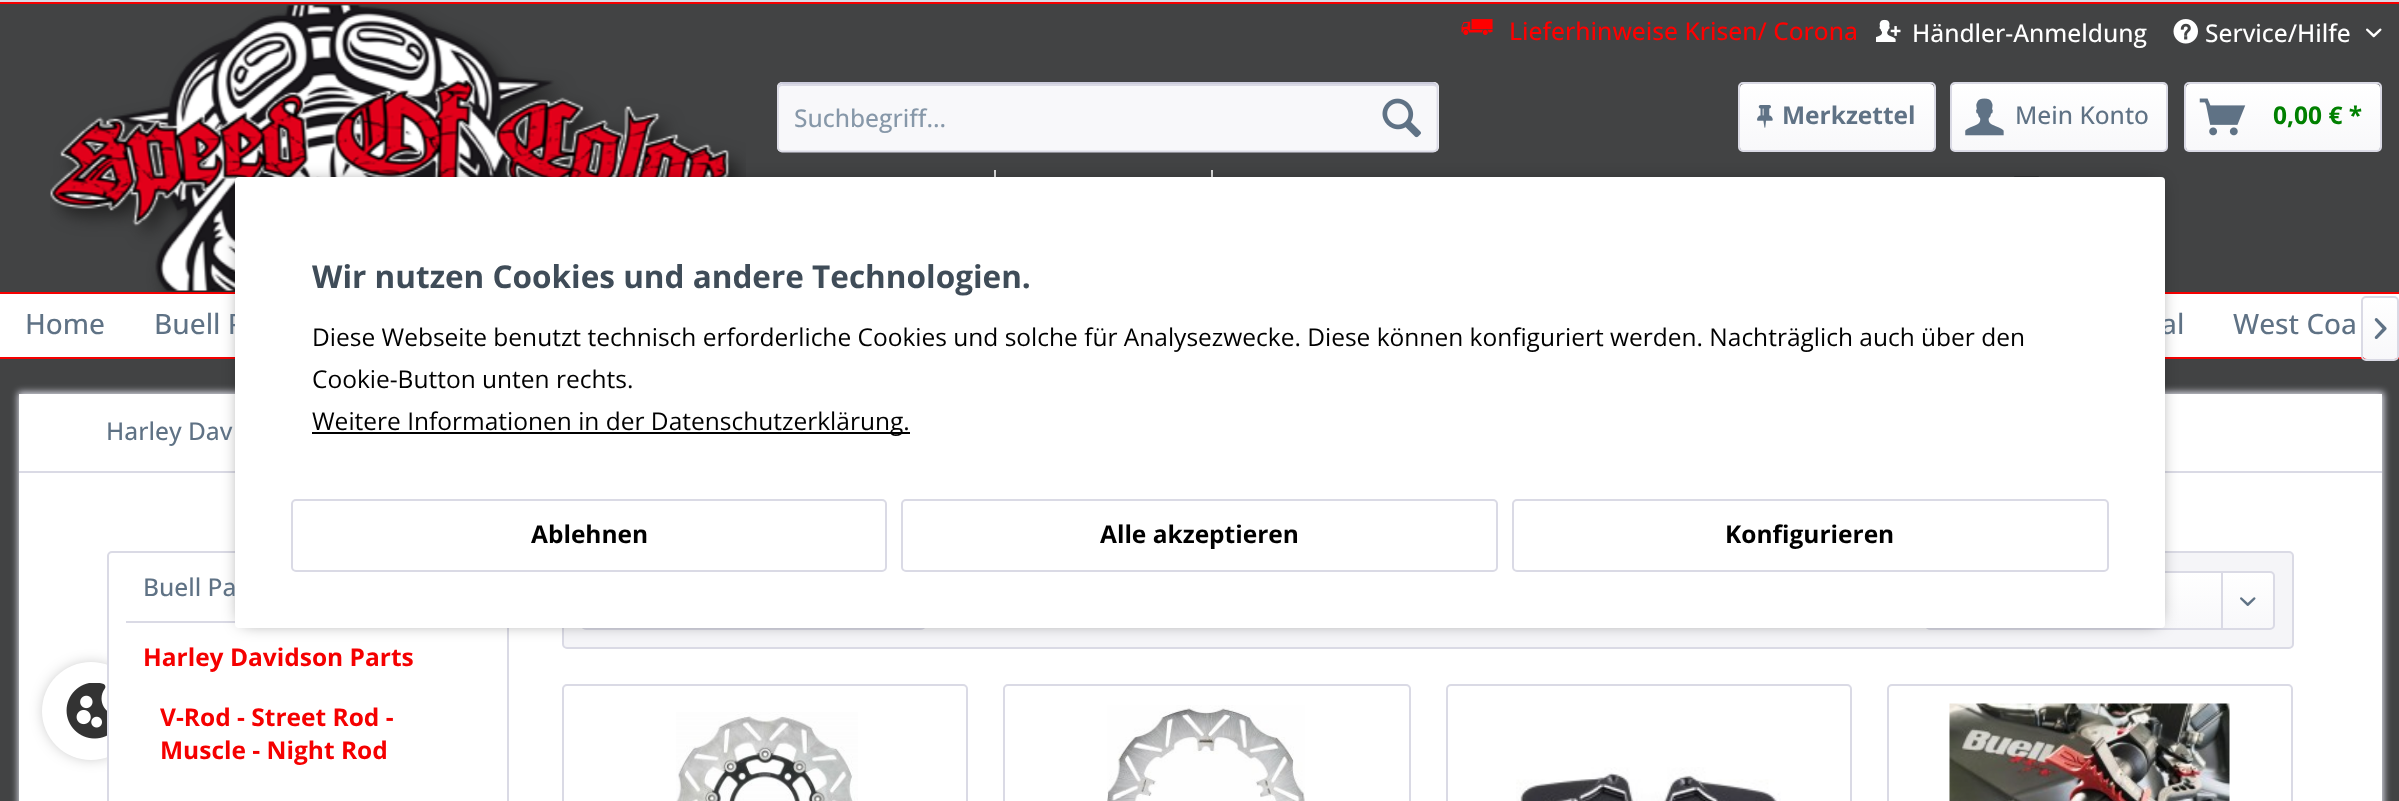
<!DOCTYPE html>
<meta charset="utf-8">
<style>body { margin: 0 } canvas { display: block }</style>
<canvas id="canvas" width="2399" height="801"></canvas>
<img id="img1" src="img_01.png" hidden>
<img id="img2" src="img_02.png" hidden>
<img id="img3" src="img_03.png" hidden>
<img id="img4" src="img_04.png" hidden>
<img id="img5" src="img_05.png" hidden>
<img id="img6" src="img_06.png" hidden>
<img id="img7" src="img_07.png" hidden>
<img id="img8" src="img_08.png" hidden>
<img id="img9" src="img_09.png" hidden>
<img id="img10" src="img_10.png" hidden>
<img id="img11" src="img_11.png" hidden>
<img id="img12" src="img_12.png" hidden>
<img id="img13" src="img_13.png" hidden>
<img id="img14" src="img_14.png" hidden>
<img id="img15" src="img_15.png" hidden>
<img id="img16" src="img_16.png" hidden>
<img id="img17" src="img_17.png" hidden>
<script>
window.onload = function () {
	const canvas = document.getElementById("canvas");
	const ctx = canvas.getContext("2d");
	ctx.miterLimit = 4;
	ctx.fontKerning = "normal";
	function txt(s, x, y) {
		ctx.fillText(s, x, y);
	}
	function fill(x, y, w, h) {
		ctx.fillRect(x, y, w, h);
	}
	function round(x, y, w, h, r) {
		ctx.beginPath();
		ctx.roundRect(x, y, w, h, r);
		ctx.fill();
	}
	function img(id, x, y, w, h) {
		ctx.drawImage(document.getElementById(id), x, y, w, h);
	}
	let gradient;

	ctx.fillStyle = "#424344";
	fill(0, 0, 2399, 801);
	ctx.fillStyle = "#F50000";
	fill(0, 2, 2399, 2);
	img("img1", 1461, 19, 32, 16);
	img("img2", 1876, 19, 25, 23);
	img("img3", 2173, 19, 25, 25);
	img("img4", 2366, 28, 16, 10);
	img("img5", 50, 2, 696, 290);
	ctx.fillStyle = "#F8F8FA";
	round(777, 82, 662, 70, 5);
	ctx.fillStyle = "#DADAE5";
	ctx.beginPath();
	ctx.moveTo(782, 86);
	ctx.lineTo(1433, 86);
	ctx.bezierCurveTo(1435, 86, 1437, 87, 1437, 89);
	ctx.bezierCurveTo(1437, 86, 1436, 84, 1433, 84);
	ctx.lineTo(783, 84);
	ctx.lineTo(780, 85);
	ctx.lineTo(779, 86);
	ctx.lineTo(779, 89);
	ctx.bezierCurveTo(779, 87, 780, 86, 782, 86);
	ctx.closePath();
	ctx.fill();
	ctx.beginPath();
	ctx.moveTo(779, 84.5);
	ctx.lineTo(782, 83);
	ctx.lineTo(1433, 83);
	ctx.lineTo(1436.5, 84.5);
	ctx.strokeStyle = "#CBCBDB";
	ctx.lineWidth = 1.8;
	ctx.stroke();
	ctx.beginPath();
	ctx.moveTo(1436.5, 84.5);
	ctx.bezierCurveTo(1437, 85, 1437.5, 86.5, 1437.5, 87.5);
	ctx.lineTo(1437.5, 147);
	ctx.bezierCurveTo(1437.5, 148, 1437, 149.5, 1436.5, 150);
	ctx.bezierCurveTo(1435.5, 151, 1434.5, 151.5, 1433, 151.5);
	ctx.lineTo(782, 151.5);
	ctx.bezierCurveTo(781, 151.5, 780, 151, 779, 150);
	ctx.bezierCurveTo(778.5, 149.5, 778, 148, 778, 147);
	ctx.lineTo(778, 87.5);
	ctx.bezierCurveTo(778, 86.5, 778.5, 85, 779, 84.5);
	ctx.strokeStyle = "#DADAE5";
	ctx.stroke();
	img("img6", 1382, 98, 39, 40);
	ctx.fillStyle = "#DFDFDF";
	fill(994, 170, 2, 7);
	fill(1211, 170, 2, 7);
	gradient = ctx.createLinearGradient(1837, 84, 1837, 151);
	gradient.addColorStop(0, "#FFFFFF");
	gradient.addColorStop(1, "#F8F8FA");
	ctx.fillStyle = gradient;
	round(1740, 84, 194, 67, 4);
	ctx.beginPath();
	ctx.roundRect(1739, 83, 196, 68, 4);
	ctx.lineWidth = 2;
	ctx.stroke();
	img("img7", 1757, 105, 16, 23);
	gradient = ctx.createLinearGradient(2059, 84, 2059, 151);
	gradient.addColorStop(0, "#FFFFFF");
	gradient.addColorStop(1, "#F8F8FA");
	ctx.fillStyle = gradient;
	round(1951, 84, 216, 67, 4);
	ctx.beginPath();
	ctx.roundRect(1951, 83, 216, 68, 4);
	ctx.stroke();
	img("img8", 1965, 98, 39, 38);
	gradient = ctx.createLinearGradient(2283, 84, 2283, 151);
	gradient.addColorStop(0, "#FFFFFF");
	gradient.addColorStop(1, "#F8F8FA");
	ctx.fillStyle = gradient;
	round(2186, 84, 194, 67, 4);
	ctx.beginPath();
	ctx.roundRect(2185, 83, 196, 68, 4);
	ctx.stroke();
	img("img9", 2199, 98, 47, 38);
	img("img10", 2014, 176, 25, 1);
	ctx.fillStyle = "#FFFFFF";
	fill(0, 294, 2399, 63);
	ctx.fillStyle = "#F50000";
	fill(0, 292, 2399, 2);
	fill(0, 357, 2399, 2);
	gradient = ctx.createLinearGradient(2380, 298, 2380, 359);
	gradient.addColorStop(0, "#FFFFFF");
	gradient.addColorStop(1, "#F8F8FA");
	ctx.fillStyle = gradient;
	round(2363, 298, 35, 61, 4);
	ctx.beginPath();
	ctx.roundRect(2362, 297, 36, 63, 4);
	ctx.stroke();
	img("img11", 2374, 318, 13, 21);
	ctx.fillStyle = "#DADAE5";
	ctx.filter = "blur(3.5px)";
	ctx.beginPath();
	ctx.rect(18, 392, 2366, 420);
	ctx.fill();
	ctx.filter = "none";
	ctx.fillStyle = "#FFFFFF";
	fill(19, 394, 2363, 407);
	ctx.fillStyle = "#DADAE5";
	fill(19, 471, 2363, 2);
	ctx.fillStyle = "rgba(0, 0, 0, 0.5)";
	ctx.filter = "blur(9px)";
	ctx.beginPath();
	ctx.roundRect(49, 669, 84, 84, 42);
	ctx.fill();
	ctx.filter = "none";
	ctx.fillStyle = "#FFFFFF";
	ctx.beginPath();
	ctx.arc(91, 711, 49, 0, Math.PI * 2);
	ctx.fill();
	round(109, 553, 399, 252, 4);
	ctx.beginPath();
	ctx.roundRect(108, 552, 400, 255, 4);
	ctx.stroke();
	ctx.fillStyle = "#DADAE5";
	fill(126, 621, 109, 2);
	ctx.fillStyle = "#F5F5F8";
	ctx.beginPath();
	ctx.roundRect(563, 552, 1730, 96, 4);
	ctx.fill();
	ctx.stroke();
	ctx.beginPath();
	ctx.roundRect(582, 572, 343, 57, 4);
	ctx.stroke();
	gradient = ctx.createLinearGradient(2100, 572, 2100, 628);
	gradient.addColorStop(0, "#FFFFFF");
	gradient.addColorStop(1, "#F8F8FA");
	ctx.fillStyle = gradient;
	round(1927, 572, 346, 56, 4);
	ctx.beginPath();
	ctx.roundRect(1926, 572, 348, 57, 4);
	ctx.stroke();
	ctx.fillStyle = "#DADAE5";
	fill(2221, 572, 2, 58);
	img("img12", 2240, 597, 16, 9);
	ctx.beginPath();
	ctx.roundRect(563, 685, 404, 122, 4);
	ctx.stroke();
	img("img13", 676, 712, 182, 89);
	ctx.beginPath();
	ctx.roundRect(1004, 685, 406, 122, 4);
	ctx.stroke();
	img("img14", 1107, 705, 198, 96);
	ctx.beginPath();
	ctx.roundRect(1447, 685, 404, 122, 4);
	ctx.stroke();
	img("img15", 1516, 767, 265, 34);
	ctx.beginPath();
	ctx.roundRect(1888, 685, 404, 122, 4);
	ctx.stroke();
	img("img16", 1949, 703, 281, 98);
	fill(0, 0, 2399, 2);
	ctx.fillStyle = "rgba(0, 0, 0, 0.6)";
	ctx.filter = "blur(9px)";
	ctx.beginPath();
	ctx.rect(242, 184, 1916, 437);
	ctx.fill();
	ctx.filter = "none";
	img("img17", 66, 683, 41, 56);
	ctx.font = "500 24.5px Open Sans";
	ctx.fillStyle = "#FF0000";
	txt("Lieferhinweise Krisen/ Corona", 1509, 40);
	ctx.fillStyle = "#FFFFFF";
	txt("Händler-Anmeldung", 1912, 42);
	txt("Service/Hilfe", 2205, 42);
	ctx.fillStyle = "#8798A9";
	txt("Suchbegriff...", 794, 127);
	ctx.font = "bold 24.5px Open Sans";
	ctx.fillStyle = "#5F7285";
	txt("Merkzettel", 1782, 124);
	ctx.font = "500 24.5px Open Sans";
	txt("Mein Konto", 2015, 124);
	ctx.font = "bold 24.5px Open Sans";
	ctx.fillStyle = "#008000";
	txt("0,00 € *", 2273, 124);
	ctx.font = "500 28px Open Sans";
	ctx.fillStyle = "#5F7285";
	txt("Home", 25, 334);
	txt("Buell P", 154, 334);
	txt("al", 2161, 334);
	txt("West Coa", 2233, 334);
	ctx.font = "500 24.5px Open Sans";
	txt("Harley Dav", 106, 440);
	txt("Buell Pa", 143, 596);
	ctx.font = "bold 24.5px Open Sans";
	ctx.fillStyle = "#F50000";
	txt("Harley Davidson Parts", 143, 666);
	txt("V-Rod - Street Rod -", 160, 726);
	txt("Muscle - Night Rod", 160, 759);
	ctx.fillStyle = "#FFFFFF";
	round(235, 177, 1930, 451, 4);
	ctx.font = "bold 31.5px Open Sans";
	ctx.fillStyle = "#3F4C58";
	txt("Wir nutzen Cookies und andere Technologien.", 312, 288);
	ctx.font = "24.5px Open Sans";
	ctx.fillStyle = "#000000";
	txt("Diese Webseite benutzt technisch erforderliche Cookies und solche für Analysezwecke. Diese können konfiguriert werden. Nachträglich auch über den", 312, 346);
	txt("Cookie-Button unten rechts.", 312, 388);
	fill(312, 432, 598, 2);
	txt("Weitere Informationen in der Datenschutzerklärung.", 312, 430);
	ctx.beginPath();
	ctx.roundRect(292, 500, 594, 71, 4);
	ctx.stroke();
	ctx.font = "bold 24.5px Open Sans";
	txt("Ablehnen", 531, 543);
	ctx.beginPath();
	ctx.roundRect(902, 500, 595, 71, 4);
	ctx.stroke();
	txt("Alle akzeptieren", 1100, 543);
	ctx.beginPath();
	ctx.roundRect(1513, 500, 595, 71, 4);
	ctx.stroke();
	txt("Konfigurieren", 1725, 543);
};
</script>
